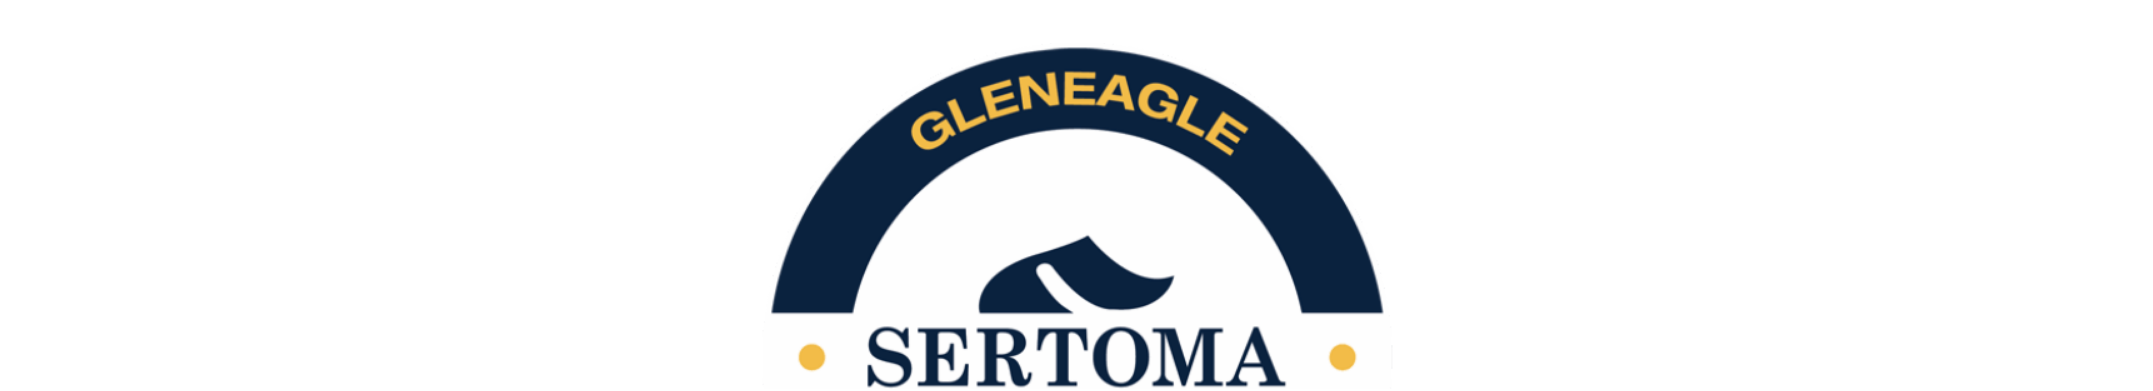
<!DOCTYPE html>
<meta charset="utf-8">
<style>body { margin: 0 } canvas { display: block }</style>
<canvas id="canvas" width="2153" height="391"></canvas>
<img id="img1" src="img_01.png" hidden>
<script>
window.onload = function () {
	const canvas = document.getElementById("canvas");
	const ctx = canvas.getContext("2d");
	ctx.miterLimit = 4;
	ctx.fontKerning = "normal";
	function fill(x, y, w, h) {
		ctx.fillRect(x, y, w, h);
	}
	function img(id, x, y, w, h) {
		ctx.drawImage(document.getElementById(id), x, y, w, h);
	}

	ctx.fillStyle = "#FFFFFF";
	fill(0, 0, 2153, 391);
	img("img1", 762, 43, 631, 346);
};
</script>
